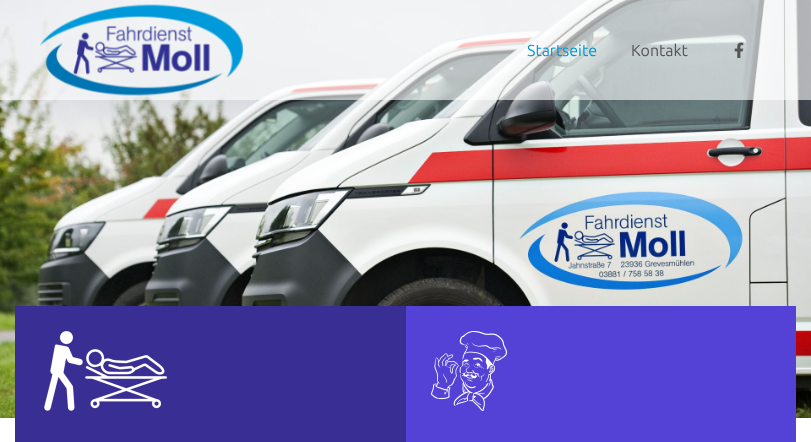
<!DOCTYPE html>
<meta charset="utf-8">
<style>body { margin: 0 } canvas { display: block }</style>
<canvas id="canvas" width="811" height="442"></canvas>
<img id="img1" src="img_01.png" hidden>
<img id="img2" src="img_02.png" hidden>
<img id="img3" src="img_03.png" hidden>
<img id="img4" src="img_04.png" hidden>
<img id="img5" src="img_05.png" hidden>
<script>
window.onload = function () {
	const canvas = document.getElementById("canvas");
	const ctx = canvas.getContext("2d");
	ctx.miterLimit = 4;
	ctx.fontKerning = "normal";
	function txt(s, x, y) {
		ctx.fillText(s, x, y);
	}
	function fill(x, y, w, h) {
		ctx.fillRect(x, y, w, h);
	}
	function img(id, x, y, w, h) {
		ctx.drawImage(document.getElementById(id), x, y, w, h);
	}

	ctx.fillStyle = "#FFFFFF";
	fill(0, 0, 811, 442);
	img("img1", 0, 0, 811, 418);
	ctx.fillStyle = "#392E93";
	fill(15, 306, 391, 136);
	img("img2", 44, 331, 123, 80);
	ctx.fillStyle = "#5342D5";
	fill(406, 306, 390, 136);
	img("img3", 431, 331, 76, 80);
	ctx.fillStyle = "rgba(255, 255, 255, 0.6)";
	fill(0, 0, 811, 100);
	img("img4", 40, 4, 203, 92);
	img("img5", 734, 42, 10, 16);
	ctx.font = "16px Ubuntu";
	ctx.fillStyle = "#0095D7";
	txt("Startseite", 527, 56);
	ctx.fillStyle = "#555555";
	txt("Kontakt", 631, 56);
};
</script>
